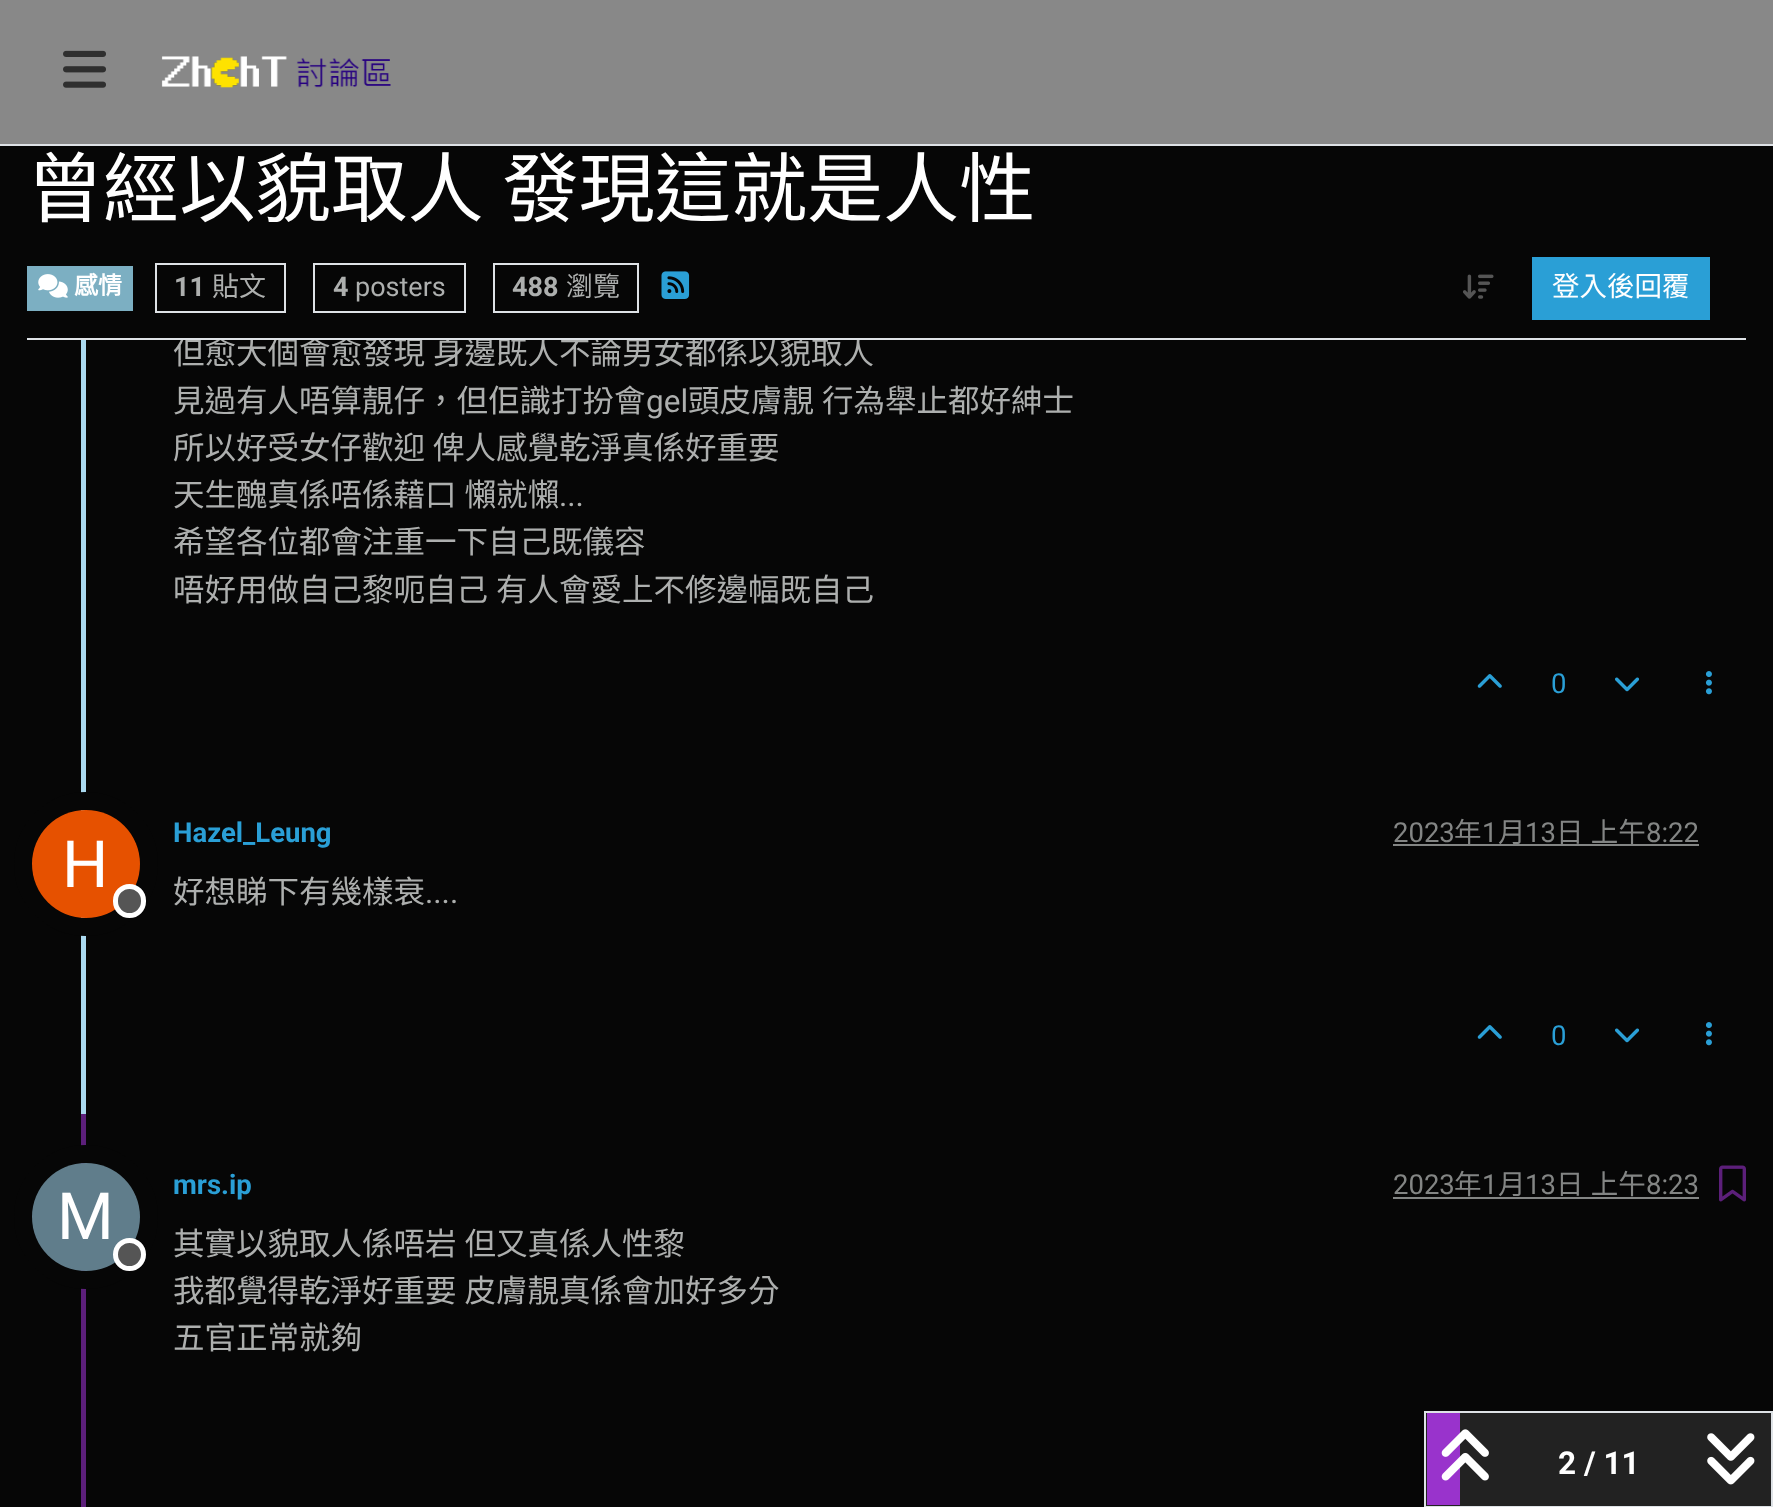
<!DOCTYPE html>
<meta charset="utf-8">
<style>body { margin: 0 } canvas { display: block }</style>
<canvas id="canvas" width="1773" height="1507"></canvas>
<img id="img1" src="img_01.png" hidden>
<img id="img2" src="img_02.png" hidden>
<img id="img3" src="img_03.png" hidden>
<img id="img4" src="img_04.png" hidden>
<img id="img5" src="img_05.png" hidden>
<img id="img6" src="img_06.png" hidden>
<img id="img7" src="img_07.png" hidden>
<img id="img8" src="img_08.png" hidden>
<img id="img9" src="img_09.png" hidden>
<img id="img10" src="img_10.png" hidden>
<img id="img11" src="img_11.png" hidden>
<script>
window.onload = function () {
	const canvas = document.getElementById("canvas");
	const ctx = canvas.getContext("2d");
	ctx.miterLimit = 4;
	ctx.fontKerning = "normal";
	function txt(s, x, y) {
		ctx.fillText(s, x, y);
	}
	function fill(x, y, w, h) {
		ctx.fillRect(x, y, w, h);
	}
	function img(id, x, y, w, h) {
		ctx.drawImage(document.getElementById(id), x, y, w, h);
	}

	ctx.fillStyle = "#060606";
	fill(0, 0, 1773, 1507);
	ctx.fillStyle = "#888888";
	fill(0, 0, 1773, 144);
	ctx.fillStyle = "#DEE2E6";
	fill(0, 144, 1773, 2);
	img("img1", 63, 50, 43, 38);
	img("img2", 161, 56, 230, 32);
	ctx.fillStyle = "#7CAFC2";
	fill(27, 266, 106, 45);
	img("img3", 38, 274, 30, 24);
	ctx.strokeStyle = "#DEE2E6";
	ctx.lineWidth = 2;
	ctx.strokeRect(156, 264, 129, 48);
	ctx.strokeRect(314, 264, 151, 48);
	ctx.strokeRect(494, 264, 144, 48);
	img("img4", 661, 271, 29, 28);
	img("img5", 1463, 274, 31, 25);
	ctx.fillStyle = "#2A9FD6";
	fill(1532, 257, 178, 63);
	ctx.fillStyle = "#AAD9EF";
	fill(81, 340, 5, 774);
	img("img6", 1477, 674, 25, 14);
	img("img7", 1615, 677, 25, 15);
	img("img8", 1705, 671, 7, 24);
	ctx.fillStyle = "#838584";
	fill(1393, 844, 306, 2);
	ctx.beginPath();
	ctx.arc(86, 864, 63, 0, Math.PI * 2);
	ctx.strokeStyle = "#060606";
	ctx.lineWidth = 18;
	ctx.stroke();
	ctx.fillStyle = "#E65100";
	ctx.beginPath();
	ctx.arc(86, 864, 54, 0, Math.PI * 2);
	ctx.fill();
	ctx.fillStyle = "#555555";
	ctx.beginPath();
	ctx.roundRect(115.5, 886.5, 28, 29, 14);
	ctx.fill();
	ctx.strokeStyle = "#FFFFFF";
	ctx.lineWidth = 5;
	ctx.stroke();
	img("img6", 1477, 1025, 25, 14);
	img("img7", 1615, 1028, 25, 15);
	img("img8", 1705, 1022, 7, 24);
	ctx.fillStyle = "#5C1F7A";
	fill(81, 1114, 5, 393);
	ctx.fillStyle = "#838584";
	fill(1393, 1197, 306, 2);
	img("img9", 1719, 1165, 27, 37);
	ctx.beginPath();
	ctx.arc(86, 1217, 63, 0, Math.PI * 2);
	ctx.strokeStyle = "#060606";
	ctx.lineWidth = 18;
	ctx.stroke();
	ctx.fillStyle = "#607D8B";
	ctx.beginPath();
	ctx.arc(86, 1217, 54, 0, Math.PI * 2);
	ctx.fill();
	ctx.fillStyle = "#555555";
	ctx.beginPath();
	ctx.arc(129.5, 1254.5, 14, 0, Math.PI * 2);
	ctx.fill();
	ctx.strokeStyle = "#FFFFFF";
	ctx.lineWidth = 5;
	ctx.stroke();
	ctx.fillStyle = "#222222";
	ctx.beginPath();
	ctx.rect(1425, 1412, 347, 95);
	ctx.fill();
	ctx.strokeStyle = "#DEE2E6";
	ctx.lineWidth = 2;
	ctx.stroke();
	ctx.fillStyle = "#9933CC";
	fill(1427, 1413, 33, 92);
	img("img10", 1441, 1429, 48, 52);
	img("img11", 1707, 1433, 48, 52);
	ctx.wordSpacing = "2px";
	ctx.font = "76.1px Noto Sans CJK TC";
	ctx.fillStyle = "#FFFFFF";
	txt("曾經以貌取人 發現這就是人性", 27, 216);
	ctx.wordSpacing = "0px";
	ctx.font = "bold 24px Noto Sans CJK TC";
	txt("感情", 74, 294);
	ctx.font = "bold 27px Roboto";
	ctx.fillStyle = "#ADAFAE";
	txt("11", 174, 296);
	ctx.font = "27px Noto Sans CJK TC";
	txt("貼文", 212, 296);
	ctx.font = "bold 27px Roboto";
	txt("4", 333, 296);
	ctx.font = "27px Roboto";
	txt("posters", 355, 296);
	ctx.font = "bold 27px Roboto";
	txt("488", 512, 296);
	ctx.font = "27px Noto Sans CJK TC";
	txt("瀏覽", 566, 296);
	ctx.font = "27.5px Noto Sans CJK TC";
	ctx.fillStyle = "#FFFFFF";
	txt("登入後回覆", 1552, 296);
	ctx.wordSpacing = "1px";
	ctx.font = "31.5px Noto Sans CJK TC";
	ctx.fillStyle = "#ADAFAE";
	txt("但愈大個會愈發現 身邊既人不論男女都係以貌取人", 173, 364);
	ctx.fillStyle = "#DEE2E6";
	fill(27, 338, 1719, 2);
	ctx.fillStyle = "#060606";
	fill(181, 337, 679, 1);
	ctx.wordSpacing = "0px";
	ctx.fillStyle = "#ADAFAE";
	txt("見過有人唔算靚仔，但佢識打扮會", 173, 412);
	ctx.font = "31.5px Roboto";
	txt("gel", 646, 412);
	ctx.wordSpacing = "1px";
	ctx.font = "31.5px Noto Sans CJK TC";
	txt("頭皮膚靚 行為舉止都好紳士", 688, 412);
	txt("所以好受女仔歡迎 俾人感覺乾淨真係好重要", 173, 459);
	txt("天生醜真係唔係藉口 懶就懶", 173, 506);
	ctx.wordSpacing = "0px";
	ctx.font = "31.5px Roboto";
	txt("...", 559, 506);
	ctx.font = "31.5px Noto Sans CJK TC";
	txt("希望各位都會注重一下自己既儀容", 173, 553);
	ctx.wordSpacing = "1px";
	txt("唔好用做自己黎呃自己 有人會愛上不修邊幅既自己", 173, 601);
	ctx.wordSpacing = "0px";
	ctx.font = "27.5px Roboto";
	ctx.fillStyle = "#2A9FD6";
	txt("0", 1551, 693);
	ctx.font = "bold 27.5px Roboto";
	txt("Hazel_Leung", 173, 842);
	ctx.font = "27.5px Roboto";
	ctx.fillStyle = "#838584";
	txt("2023", 1393, 842);
	ctx.font = "27.5px Noto Sans CJK TC";
	txt("年", 1454, 842);
	ctx.font = "27.5px Roboto";
	txt("1", 1482, 842);
	ctx.font = "27.5px Noto Sans CJK TC";
	txt("月", 1498, 842);
	ctx.font = "27.5px Roboto";
	txt("13", 1525, 842);
	ctx.wordSpacing = "1px";
	ctx.font = "27.5px Noto Sans CJK TC";
	txt("日 上午", 1556, 842);
	ctx.wordSpacing = "0px";
	ctx.font = "27.5px Roboto";
	txt("8:22", 1646, 842);
	ctx.font = "65px Roboto";
	ctx.fillStyle = "#FFFFFF";
	txt("H", 62, 887);
	ctx.font = "31.5px Noto Sans CJK TC";
	ctx.fillStyle = "#ADAFAE";
	txt("好想睇下有幾樣衰", 173, 903);
	ctx.font = "31.5px Roboto";
	txt("....", 425, 903);
	ctx.font = "27.5px Roboto";
	ctx.fillStyle = "#2A9FD6";
	txt("0", 1551, 1045);
	ctx.font = "bold 27.5px Roboto";
	txt("mrs.ip", 173, 1194);
	ctx.font = "27.5px Roboto";
	ctx.fillStyle = "#838584";
	txt("2023", 1393, 1194);
	ctx.font = "27.5px Noto Sans CJK TC";
	txt("年", 1454, 1194);
	ctx.font = "27.5px Roboto";
	txt("1", 1482, 1194);
	ctx.font = "27.5px Noto Sans CJK TC";
	txt("月", 1498, 1194);
	ctx.font = "27.5px Roboto";
	txt("13", 1525, 1194);
	ctx.wordSpacing = "1px";
	ctx.font = "27.5px Noto Sans CJK TC";
	txt("日 上午", 1556, 1194);
	ctx.wordSpacing = "0px";
	ctx.font = "27.5px Roboto";
	txt("8:23", 1646, 1194);
	ctx.font = "65px Roboto";
	ctx.fillStyle = "#FFFFFF";
	txt("M", 57, 1239);
	ctx.wordSpacing = "1px";
	ctx.font = "31.5px Noto Sans CJK TC";
	ctx.fillStyle = "#ADAFAE";
	txt("其實以貌取人係唔岩 但又真係人性黎", 173, 1255);
	txt("我都覺得乾淨好重要 皮膚靚真係會加好多分", 173, 1302);
	ctx.wordSpacing = "0px";
	txt("五官正常就夠", 173, 1349);
	ctx.font = "bold 31.5px Roboto";
	ctx.fillStyle = "#FFFFFF";
	txt("2 / 11", 1558, 1474);
};
</script>
